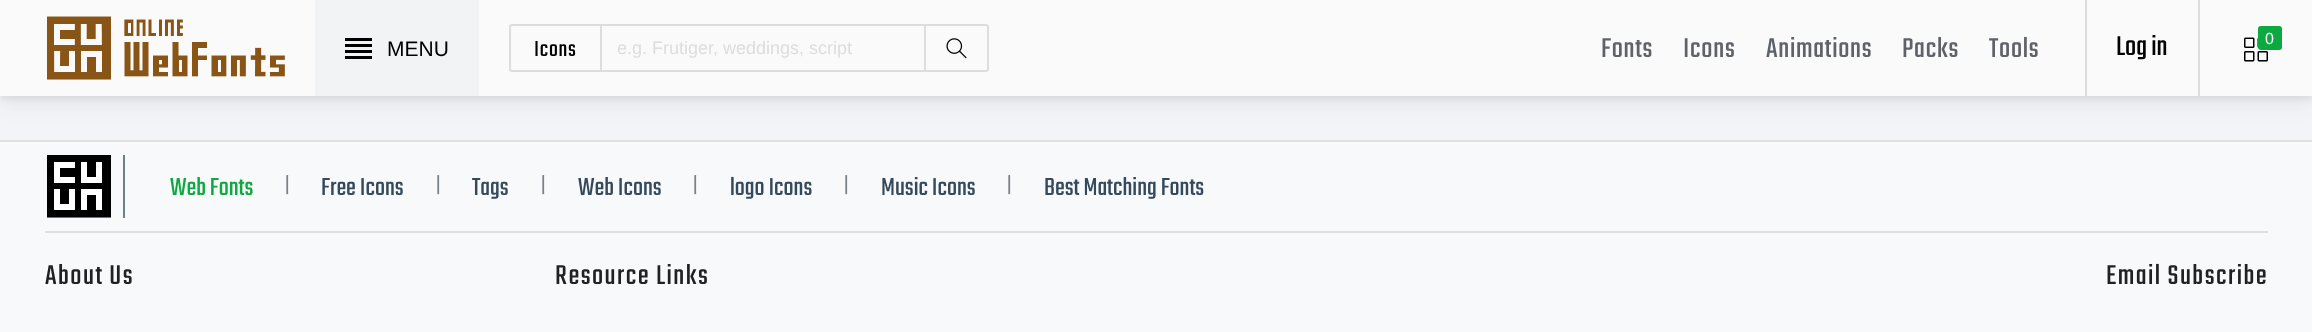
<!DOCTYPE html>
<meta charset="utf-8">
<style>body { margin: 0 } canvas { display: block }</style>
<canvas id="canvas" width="2312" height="332"></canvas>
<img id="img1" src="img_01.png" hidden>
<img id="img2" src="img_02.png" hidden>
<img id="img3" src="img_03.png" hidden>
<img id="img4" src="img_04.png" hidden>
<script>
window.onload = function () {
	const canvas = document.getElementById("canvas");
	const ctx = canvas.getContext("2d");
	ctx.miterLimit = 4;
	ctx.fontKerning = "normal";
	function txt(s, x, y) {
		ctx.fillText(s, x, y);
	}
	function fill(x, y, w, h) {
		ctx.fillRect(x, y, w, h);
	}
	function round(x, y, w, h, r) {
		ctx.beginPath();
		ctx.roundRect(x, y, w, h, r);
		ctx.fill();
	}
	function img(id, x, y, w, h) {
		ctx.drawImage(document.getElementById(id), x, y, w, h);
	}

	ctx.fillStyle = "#F8F9FA";
	fill(0, 0, 2312, 332);
	ctx.fillStyle = "#F2F4F8";
	fill(0, 96, 2312, 44);
	ctx.fillStyle = "rgba(0, 0, 0, 0.04)";
	ctx.filter = "blur(9px)";
	ctx.beginPath();
	ctx.rect(0, 12, 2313, 96);
	ctx.fill();
	ctx.filter = "none";
	ctx.fillStyle = "rgba(0, 0, 0, 0.08)";
	ctx.filter = "blur(3px)";
	ctx.beginPath();
	ctx.rect(0, 3, 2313, 96);
	ctx.fill();
	ctx.filter = "none";
	ctx.fillStyle = "#FAFAFA";
	fill(0, 0, 2312, 96);
	ctx.fillStyle = "#885516";
	fill(47, 16, 238, 64);
	img("img1", 47, 11, 240, 75);
	ctx.fillStyle = "#F1F3F4";
	fill(315, 0, 164, 96);
	ctx.fillStyle = "#000000";
	fill(345, 38, 27, 3);
	fill(345, 44, 27, 3);
	fill(345, 50, 27, 3);
	fill(345, 56, 27, 3);
	ctx.beginPath();
	ctx.roundRect(510, 25, 478, 46, 2);
	ctx.strokeStyle = "#DDDDDD";
	ctx.lineWidth = 2;
	ctx.stroke();
	ctx.fillStyle = "#DDDDDD";
	fill(924, 26, 2, 45);
	fill(600, 26, 2, 45);
	img("img2", 946, 38, 21, 21);
	fill(2198, 0, 2, 96);
	fill(2085, 0, 2, 96);
	img("img3", 2244, 37, 24, 25);
	ctx.fillStyle = "#0CA940";
	round(2258, 26, 24, 24, 3);
	ctx.fillStyle = "#DFE0E1";
	fill(0, 140, 2312, 2);
	fill(45, 231, 2223, 2);
	img("img4", 47, 155, 64, 63);
	ctx.fillStyle = "#6F7F87";
	fill(123, 155, 2, 63);
	ctx.font = "21px Liberation Sans";
	ctx.fillStyle = "#000000";
	txt("MENU", 387, 56);
	ctx.letterSpacing = "0.75px";
	ctx.font = "24px Teko";
	txt("Icons", 534, 56);
	ctx.letterSpacing = "0px";
	ctx.font = "18px Liberation Sans";
	ctx.fillStyle = "#DDDDDD";
	txt("e.g. Frutiger, weddings, script", 617, 54);
	ctx.letterSpacing = "0.75px";
	ctx.font = "30px Teko";
	ctx.fillStyle = "#5F6368";
	txt("Fonts", 1601, 57);
	txt("Icons", 1683, 57);
	txt("Animations", 1766, 57);
	txt("Packs", 1902, 57);
	txt("Tools", 1989, 57);
	ctx.letterSpacing = "0px";
	ctx.fillStyle = "#000000";
	txt("Log in", 2116, 55);
	ctx.font = "16px Liberation Sans";
	ctx.fillStyle = "#FFFFFF";
	txt("0", 2265, 44);
	ctx.font = "27px Teko";
	ctx.fillStyle = "#0CA940";
	txt("Web Fonts", 170, 195);
	ctx.font = "21px Fira Sans";
	ctx.fillStyle = "#7A8188";
	txt("|", 283, 192);
	ctx.font = "27px Teko";
	ctx.fillStyle = "#35495C";
	txt("Free Icons", 321, 195);
	ctx.font = "21px Fira Sans";
	ctx.fillStyle = "#7A8188";
	txt("|", 434, 192);
	ctx.font = "27px Teko";
	ctx.fillStyle = "#35495C";
	txt("Tags", 472, 195);
	ctx.font = "21px Fira Sans";
	ctx.fillStyle = "#7A8188";
	txt("|", 539, 192);
	ctx.font = "27px Teko";
	ctx.fillStyle = "#35495C";
	txt("Web Icons", 578, 195);
	ctx.font = "21px Fira Sans";
	ctx.fillStyle = "#7A8188";
	txt("|", 691, 192);
	ctx.font = "27px Teko";
	ctx.fillStyle = "#35495C";
	txt("logo Icons", 730, 195);
	ctx.font = "21px Fira Sans";
	ctx.fillStyle = "#7A8188";
	txt("|", 842, 192);
	ctx.font = "27px Teko";
	ctx.fillStyle = "#35495C";
	txt("Music Icons", 881, 195);
	ctx.font = "21px Fira Sans";
	ctx.fillStyle = "#7A8188";
	txt("|", 1005, 192);
	ctx.font = "27px Teko";
	ctx.fillStyle = "#35495C";
	txt("Best Matching Fonts", 1044, 195);
	ctx.letterSpacing = "1.5px";
	ctx.font = "30px Teko";
	ctx.fillStyle = "#202124";
	txt("About Us", 45, 284);
	txt("Resource Links", 555, 284);
	txt("Email Subscribe", 2106, 284);
};
</script>
